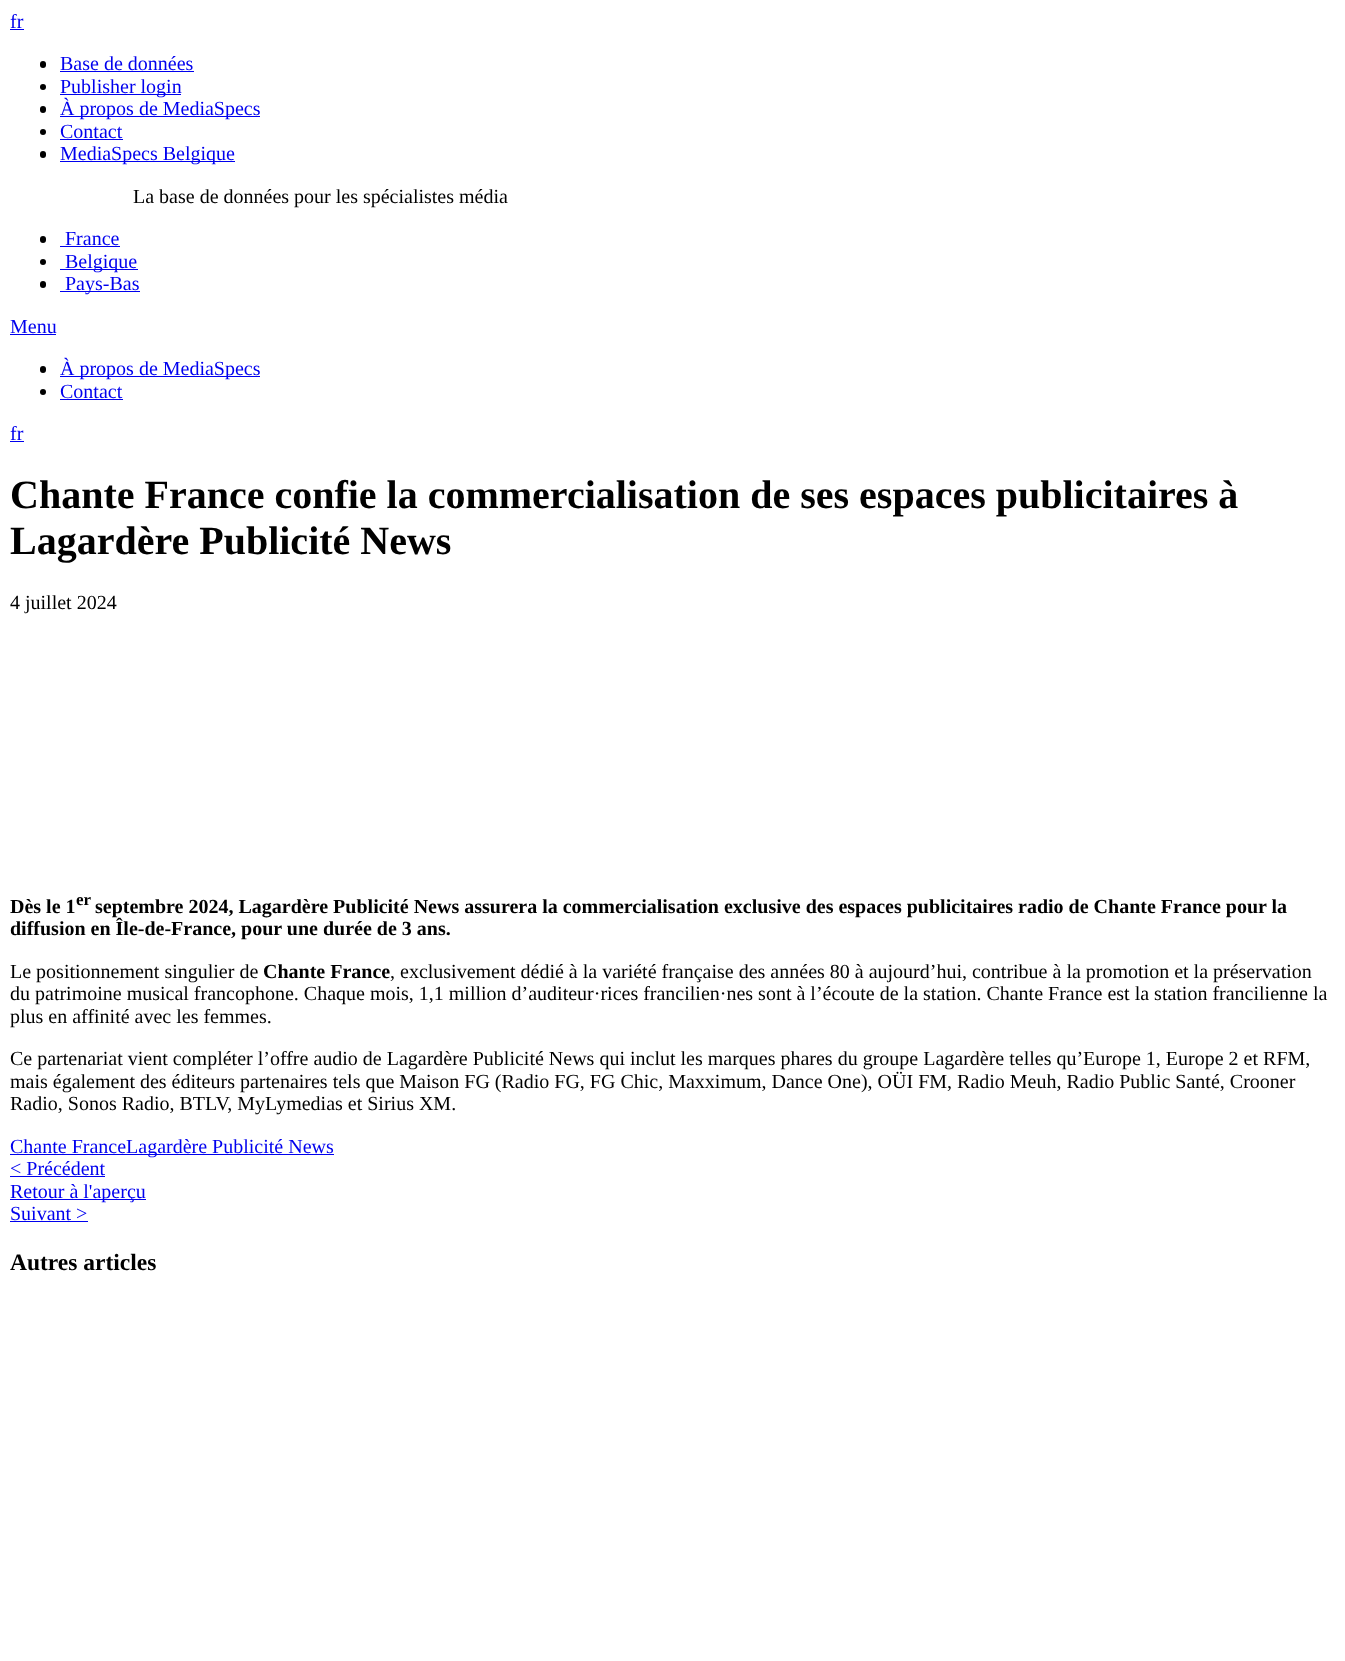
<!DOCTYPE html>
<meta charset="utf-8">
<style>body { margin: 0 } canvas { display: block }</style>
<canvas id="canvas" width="1345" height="1661"></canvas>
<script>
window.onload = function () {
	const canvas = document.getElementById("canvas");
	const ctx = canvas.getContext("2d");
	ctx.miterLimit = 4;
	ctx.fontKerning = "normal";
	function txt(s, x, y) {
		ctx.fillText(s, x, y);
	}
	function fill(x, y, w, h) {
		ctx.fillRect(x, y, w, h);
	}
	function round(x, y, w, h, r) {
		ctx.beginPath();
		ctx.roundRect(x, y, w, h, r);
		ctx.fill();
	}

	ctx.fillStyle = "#FFFFFF";
	fill(0, 0, 1345, 1661);
	ctx.fillStyle = "#0000EE";
	fill(10, 29, 14, 1);
	ctx.fillStyle = "#000000";
	round(40, 61, 6, 7, 3);
	ctx.fillStyle = "#0000EE";
	fill(60, 71, 134, 1);
	ctx.fillStyle = "#000000";
	ctx.beginPath();
	ctx.arc(43, 87, 3, 0, Math.PI * 2);
	ctx.fill();
	ctx.fillStyle = "#0000EE";
	fill(60, 94, 121, 1);
	ctx.fillStyle = "#000000";
	round(40, 106, 6, 7, 3);
	ctx.fillStyle = "#0000EE";
	fill(60, 116, 200, 1);
	ctx.fillStyle = "#000000";
	ctx.beginPath();
	ctx.arc(43, 132, 3, 0, Math.PI * 2);
	ctx.fill();
	ctx.fillStyle = "#0000EE";
	fill(60, 139, 63, 1);
	ctx.fillStyle = "#000000";
	round(40, 151, 6, 7, 3);
	ctx.fillStyle = "#0000EE";
	fill(60, 161, 175, 1);
	ctx.fillStyle = "#000000";
	round(40, 236, 6, 7, 3);
	ctx.fillStyle = "#0000EE";
	fill(60, 246, 60, 1);
	ctx.fillStyle = "#000000";
	ctx.beginPath();
	ctx.arc(43, 262, 3, 0, Math.PI * 2);
	ctx.fill();
	ctx.fillStyle = "#0000EE";
	fill(60, 269, 78, 1);
	ctx.fillStyle = "#000000";
	round(40, 281, 6, 7, 3);
	ctx.fillStyle = "#0000EE";
	fill(60, 291, 80, 1);
	fill(10, 334, 46, 1);
	ctx.fillStyle = "#000000";
	round(40, 366, 6, 7, 3);
	ctx.fillStyle = "#0000EE";
	fill(60, 376, 200, 1);
	ctx.fillStyle = "#000000";
	ctx.beginPath();
	ctx.arc(43, 392, 3, 0, Math.PI * 2);
	ctx.fill();
	ctx.fillStyle = "#0000EE";
	fill(60, 399, 63, 1);
	fill(10, 441, 14, 1);
	fill(10, 1154, 324, 1);
	fill(10, 1176, 95, 1);
	fill(10, 1199, 136, 1);
	fill(10, 1221, 78, 1);
	ctx.font = "20px Liberation Serif";
	txt("fr", 10, 28);
	txt("Base de données", 60, 70);
	txt("Publisher login", 60, 93);
	txt("À propos de MediaSpecs", 60, 115);
	txt("Contact", 60, 138);
	txt("MediaSpecs Belgique", 60, 160);
	ctx.fillStyle = "#000000";
	txt("La base de données pour les spécialistes média", 133, 203);
	ctx.fillStyle = "#0000EE";
	txt("France", 65, 245);
	txt("Belgique", 65, 268);
	txt("Pays-Bas", 65, 290);
	txt("Menu", 10, 333);
	txt("À propos de MediaSpecs", 60, 375);
	txt("Contact", 60, 398);
	txt("fr", 10, 440);
	ctx.font = "bold 40px Liberation Serif";
	ctx.fillStyle = "#000000";
	txt("Chante France confie la commercialisation de ses espaces publicitaires à", 10, 508);
	txt("Lagardère Publicité News", 10, 554);
	ctx.font = "20px Liberation Serif";
	txt("4 juillet 2024", 10, 609);
	ctx.font = "bold 20px Liberation Serif";
	txt("Dès le 1", 10, 913);
	ctx.font = "bold 17px Liberation Serif";
	txt("er", 76, 905);
	ctx.font = "bold 20px Liberation Serif";
	txt("septembre 2024, Lagardère Publicité News assurera la commercialisation exclusive des espaces publicitaires radio de Chante France pour la", 95, 913);
	txt("diffusion en Île-de-France, pour une durée de 3 ans.", 10, 935);
	ctx.font = "20px Liberation Serif";
	txt("Le positionnement singulier de", 10, 978);
	ctx.font = "bold 20px Liberation Serif";
	txt("Chante France", 263, 978);
	ctx.font = "20px Liberation Serif";
	txt(", exclusivement dédié à la variété française des années 80 à aujourd’hui, contribue à la promotion et la préservation", 390, 978);
	txt("du patrimoine musical francophone. Chaque mois, 1,1 million d’auditeur·rices francilien·nes sont à l’écoute de la station. Chante France est la station francilienne la", 10, 1000);
	txt("plus en affinité avec les femmes.", 10, 1023);
	txt("Ce partenariat vient compléter l’offre audio de Lagardère Publicité News qui inclut les marques phares du groupe Lagardère telles qu’Europe 1, Europe 2 et RFM,", 10, 1065);
	txt("mais également des éditeurs partenaires tels que Maison FG (Radio FG, FG Chic, Maxximum, Dance One), OÜI FM, Radio Meuh, Radio Public Santé, Crooner", 10, 1088);
	txt("Radio, Sonos Radio, BTLV, MyLymedias et Sirius XM.", 10, 1110);
	ctx.fillStyle = "#0000EE";
	txt("Chante FranceLagardère Publicité News", 10, 1153);
	txt("< Précédent", 10, 1175);
	txt("Retour à l'aperçu", 10, 1198);
	txt("Suivant >", 10, 1220);
	ctx.font = "bold 23.5px Liberation Serif";
	ctx.fillStyle = "#000000";
	txt("Autres articles", 10, 1270);
};
</script>
